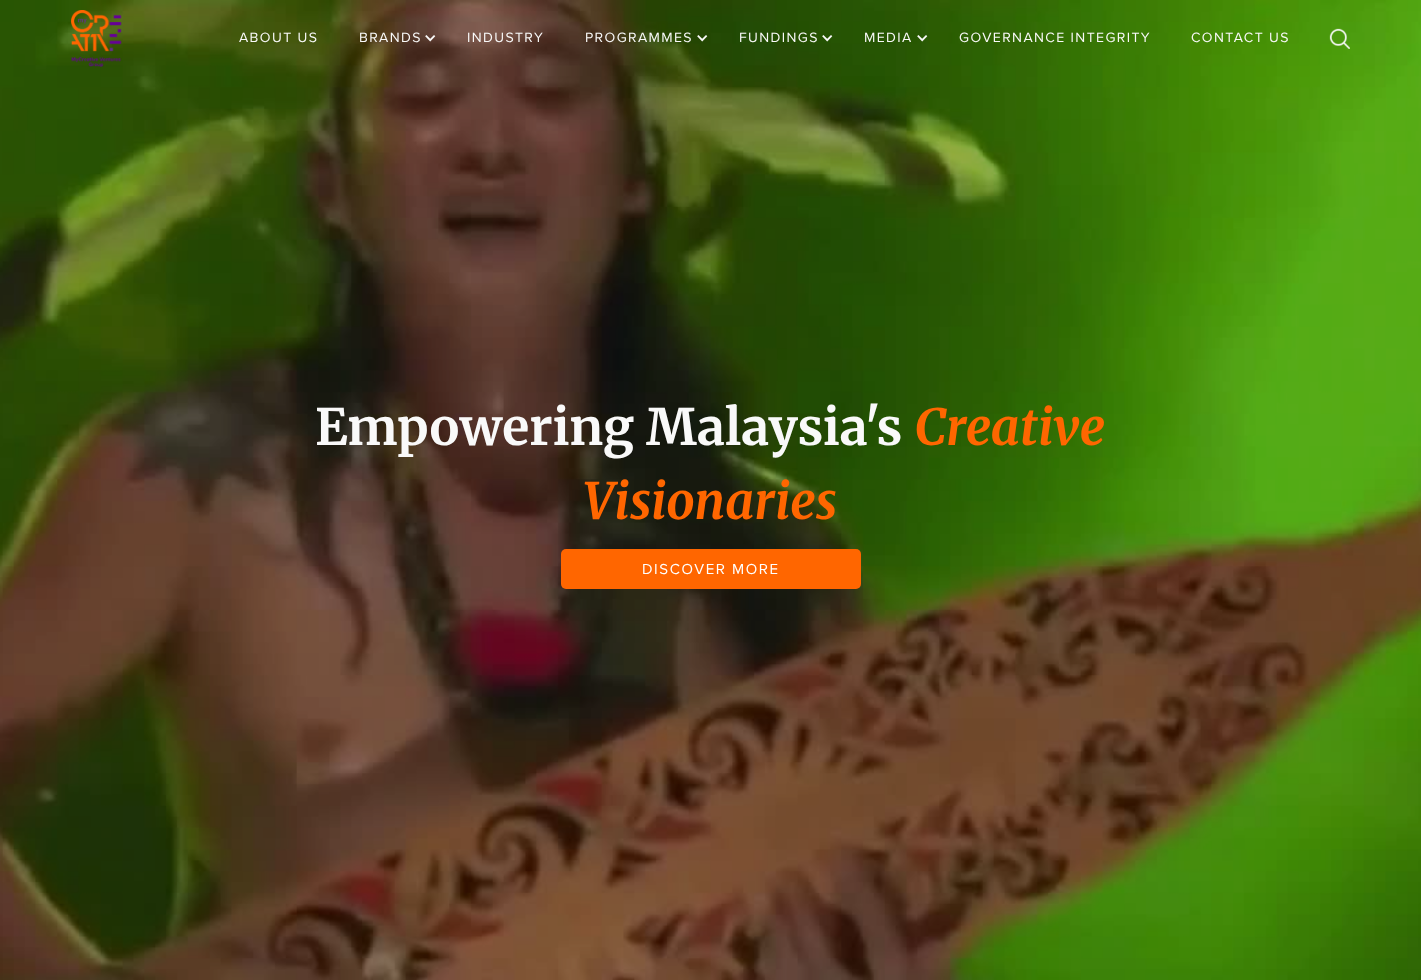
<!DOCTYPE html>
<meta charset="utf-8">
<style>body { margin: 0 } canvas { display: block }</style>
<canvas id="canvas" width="1421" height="980"></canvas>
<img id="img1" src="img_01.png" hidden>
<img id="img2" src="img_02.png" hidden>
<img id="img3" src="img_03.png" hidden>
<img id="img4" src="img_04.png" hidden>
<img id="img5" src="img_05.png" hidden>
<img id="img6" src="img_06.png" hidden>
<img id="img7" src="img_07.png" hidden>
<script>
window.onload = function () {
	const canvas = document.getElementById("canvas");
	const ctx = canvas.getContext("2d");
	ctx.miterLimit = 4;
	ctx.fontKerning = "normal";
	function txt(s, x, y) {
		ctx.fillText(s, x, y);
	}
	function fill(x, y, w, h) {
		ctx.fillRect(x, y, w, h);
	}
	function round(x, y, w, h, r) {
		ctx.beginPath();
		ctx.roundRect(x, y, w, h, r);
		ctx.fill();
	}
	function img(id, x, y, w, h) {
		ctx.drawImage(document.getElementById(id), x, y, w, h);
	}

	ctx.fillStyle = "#FFFFFF";
	fill(0, 0, 1421, 980);
	img("img1", 0, 0, 1421, 980);
	img("img2", 71, 10, 51, 57);
	img("img3", 425, 35, 11, 7);
	img("img4", 697, 35, 11, 7);
	img("img5", 822, 35, 11, 7);
	img("img6", 917, 35, 11, 7);
	img("img7", 1329, 28, 21, 21);
	ctx.fillStyle = "#FF6600";
	round(561, 549, 300, 40, 5);
	ctx.letterSpacing = "1.4px";
	ctx.font = "14px Proxima Nova";
	ctx.fillStyle = "#F9F9F9";
	txt("ABOUT US", 239, 42);
	txt("BRANDS", 359, 42);
	txt("INDUSTRY", 467, 42);
	txt("PROGRAMMES", 585, 42);
	txt("FUNDINGS", 739, 42);
	txt("MEDIA", 864, 42);
	txt("GOVERNANCE INTEGRITY", 959, 42);
	txt("CONTACT US", 1191, 42);
	ctx.letterSpacing = "0px";
	ctx.font = "bold 50px Merriweather";
	txt("Empowering Malaysia's", 315, 445);
	ctx.font = "italic bold 50px Merriweather";
	ctx.fillStyle = "#FF6600";
	txt("Creative", 914, 445);
	txt("Visionaries", 583, 519);
	ctx.letterSpacing = "1.6px";
	ctx.font = "15px Proxima Nova";
	ctx.fillStyle = "#FFFFFF";
	txt("DISCOVER MORE", 642, 574);
};
</script>
